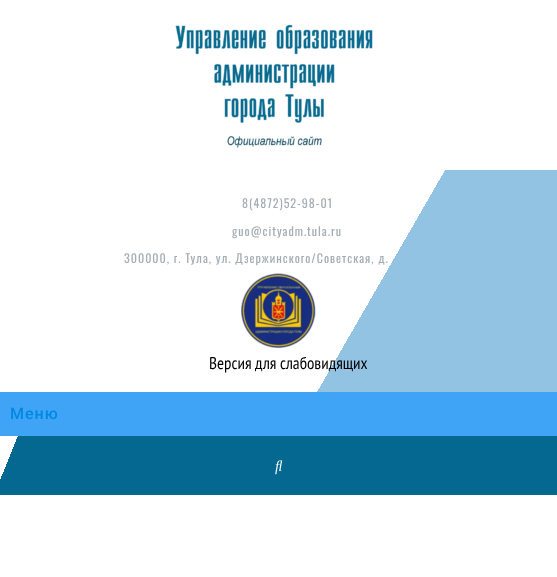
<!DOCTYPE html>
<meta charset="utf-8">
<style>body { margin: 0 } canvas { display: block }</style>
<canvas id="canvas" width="557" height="577"></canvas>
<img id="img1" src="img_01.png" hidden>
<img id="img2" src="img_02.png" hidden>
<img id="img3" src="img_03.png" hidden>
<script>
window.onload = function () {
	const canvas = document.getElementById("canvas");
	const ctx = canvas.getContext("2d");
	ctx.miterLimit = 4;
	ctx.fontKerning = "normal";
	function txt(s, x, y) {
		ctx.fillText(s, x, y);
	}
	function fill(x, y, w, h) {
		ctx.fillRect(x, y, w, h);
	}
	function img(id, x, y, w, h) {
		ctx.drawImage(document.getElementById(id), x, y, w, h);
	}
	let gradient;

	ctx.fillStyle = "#FFFFFF";
	fill(0, 0, 557, 577);
	img("img1", 175, 24, 198, 124);
	gradient = ctx.createLinearGradient(22, 133, 535, 429);
	gradient.addColorStop(0.65, "#FFFFFF");
	gradient.addColorStop(0.65, "#92C3E3");
	ctx.fillStyle = gradient;
	fill(317, 170, 240, 222);
	img("img2", 241, 273, 75, 76);
	ctx.fillStyle = "#3FA4F6";
	fill(0, 392, 557, 44);
	gradient = ctx.createLinearGradient(29, 365, 528, 566);
	gradient.addColorStop(0.03, "#FFFFFF");
	gradient.addColorStop(0.03, "#056891");
	ctx.fillStyle = gradient;
	fill(0, 436, 557, 59);
	img("img3", 275, 460, 8, 15);
	ctx.letterSpacing = "1px";
	ctx.font = "12px Oswald";
	ctx.fillStyle = "#A5AEB4";
	txt("8(4872)52-98-01", 242, 208);
	txt("guo@cityadm.tula.ru", 232, 236);
	txt("300000, г. Тула, ул. Дзержинского/Советская, д.", 124, 263);
	ctx.letterSpacing = "0px";
	ctx.font = "17px PT Sans Narrow";
	ctx.fillStyle = "#000000";
	txt("Версия для слабовидящих", 209, 369);
	ctx.letterSpacing = "1px";
	ctx.font = "500 16px Roboto";
	ctx.fillStyle = "#0088E2";
	txt("Меню", 10, 419);
};
</script>
